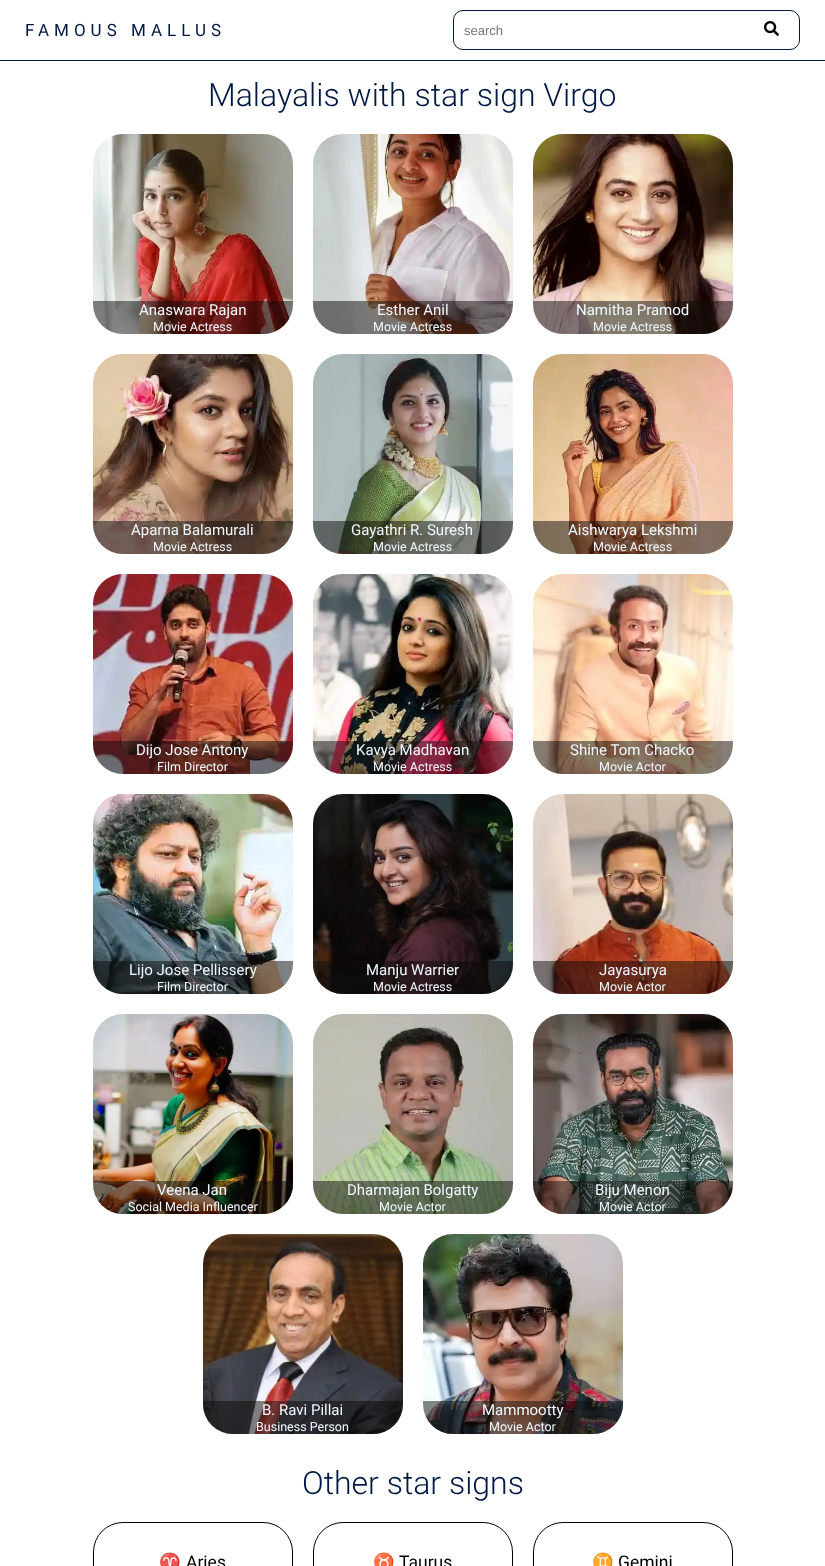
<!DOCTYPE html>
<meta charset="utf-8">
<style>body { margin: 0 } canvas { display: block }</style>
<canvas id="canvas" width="825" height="1566"></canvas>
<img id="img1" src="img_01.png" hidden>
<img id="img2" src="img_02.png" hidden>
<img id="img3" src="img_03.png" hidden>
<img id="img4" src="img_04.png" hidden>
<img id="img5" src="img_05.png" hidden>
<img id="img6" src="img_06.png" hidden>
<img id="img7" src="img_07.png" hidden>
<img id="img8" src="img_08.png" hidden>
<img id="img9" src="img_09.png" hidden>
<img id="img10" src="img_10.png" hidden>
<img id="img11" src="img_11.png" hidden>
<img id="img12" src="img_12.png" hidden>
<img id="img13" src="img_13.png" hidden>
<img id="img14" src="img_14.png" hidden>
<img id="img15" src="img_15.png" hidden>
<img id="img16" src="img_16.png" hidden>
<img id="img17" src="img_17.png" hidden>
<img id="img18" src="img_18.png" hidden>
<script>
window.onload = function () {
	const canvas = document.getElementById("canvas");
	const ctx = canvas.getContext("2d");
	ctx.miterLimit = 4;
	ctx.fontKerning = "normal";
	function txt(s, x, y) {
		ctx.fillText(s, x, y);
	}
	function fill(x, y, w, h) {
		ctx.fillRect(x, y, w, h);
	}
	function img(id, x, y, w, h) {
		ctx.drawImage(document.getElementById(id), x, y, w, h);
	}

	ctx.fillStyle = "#FFFFFF";
	fill(0, 0, 825, 1566);
	ctx.fillStyle = "#001845";
	fill(0, 60, 825, 1);
	ctx.beginPath();
	ctx.roundRect(453.5, 10.5, 346, 39, 9.5);
	ctx.strokeStyle = "#001845";
	ctx.stroke();
	img("img1", 764, 21, 15, 15);
	img("img2", 93, 134, 200, 200);
	ctx.fillStyle = "rgba(14, 12, 10, 0.5)";
	ctx.beginPath();
	ctx.roundRect(93, 301, 200, 33, [0, 0, 30, 30]);
	ctx.fill();
	img("img3", 313, 134, 200, 200);
	ctx.beginPath();
	ctx.roundRect(313, 301, 200, 33, [0, 0, 30, 30]);
	ctx.fill();
	img("img4", 533, 134, 200, 200);
	ctx.beginPath();
	ctx.roundRect(533, 301, 200, 33, [0, 0, 30, 30]);
	ctx.fill();
	img("img5", 93, 354, 200, 200);
	ctx.beginPath();
	ctx.roundRect(93, 521, 200, 33, [0, 0, 30, 30]);
	ctx.fill();
	img("img6", 313, 354, 200, 200);
	ctx.beginPath();
	ctx.roundRect(313, 521, 200, 33, [0, 0, 30, 30]);
	ctx.fill();
	img("img7", 533, 354, 200, 200);
	ctx.beginPath();
	ctx.roundRect(533, 521, 200, 33, [0, 0, 30, 30]);
	ctx.fill();
	img("img8", 93, 574, 200, 200);
	ctx.beginPath();
	ctx.roundRect(93, 741, 200, 33, [0, 0, 30, 30]);
	ctx.fill();
	img("img9", 313, 574, 200, 200);
	ctx.beginPath();
	ctx.roundRect(313, 741, 200, 33, [0, 0, 30, 30]);
	ctx.fill();
	img("img10", 533, 574, 200, 200);
	ctx.beginPath();
	ctx.roundRect(533, 741, 200, 33, [0, 0, 30, 30]);
	ctx.fill();
	img("img11", 93, 794, 200, 200);
	ctx.beginPath();
	ctx.roundRect(93, 961, 200, 33, [0, 0, 30, 30]);
	ctx.fill();
	img("img12", 313, 794, 200, 200);
	ctx.beginPath();
	ctx.roundRect(313, 961, 200, 33, [0, 0, 30, 30]);
	ctx.fill();
	img("img13", 533, 794, 200, 200);
	ctx.beginPath();
	ctx.roundRect(533, 961, 200, 33, [0, 0, 30, 30]);
	ctx.fill();
	img("img14", 93, 1014, 200, 200);
	ctx.beginPath();
	ctx.roundRect(93, 1181, 200, 33, [0, 0, 30, 30]);
	ctx.fill();
	img("img15", 313, 1014, 200, 200);
	ctx.beginPath();
	ctx.roundRect(313, 1181, 200, 33, [0, 0, 30, 30]);
	ctx.fill();
	img("img16", 533, 1014, 200, 200);
	ctx.beginPath();
	ctx.roundRect(533, 1181, 200, 33, [0, 0, 30, 30]);
	ctx.fill();
	img("img17", 203, 1234, 200, 200);
	ctx.beginPath();
	ctx.roundRect(203, 1401, 200, 33, [0, 0, 30, 30]);
	ctx.fill();
	img("img18", 423, 1234, 200, 200);
	ctx.beginPath();
	ctx.roundRect(423, 1401, 200, 33, [0, 0, 30, 30]);
	ctx.fill();
	ctx.beginPath();
	ctx.roundRect(93.5, 1522.5, 199, 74, 29.5);
	ctx.strokeStyle = "#000000";
	ctx.stroke();
	ctx.beginPath();
	ctx.roundRect(313.5, 1522.5, 199, 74, 29.5);
	ctx.stroke();
	ctx.beginPath();
	ctx.roundRect(533.5, 1522.5, 199, 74, 29.5);
	ctx.stroke();
	ctx.letterSpacing = "5px";
	ctx.font = "17px Roboto";
	ctx.fillStyle = "#001845";
	txt("FAMOUS MALLUS", 25, 36);
	ctx.letterSpacing = "0px";
	ctx.font = "13px Liberation Sans";
	ctx.fillStyle = "#757575";
	txt("search", 464, 35);
	ctx.font = "300 32px Roboto";
	ctx.fillStyle = "#001845";
	txt("Malayalis with star sign Virgo", 208, 106);
	ctx.font = "15px Roboto";
	ctx.fillStyle = "#F0F8FF";
	txt("Anaswara Rajan", 139, 315);
	ctx.font = "12.5px Roboto";
	txt("Movie Actress", 153, 331);
	ctx.font = "15px Roboto";
	txt("Esther Anil", 377, 315);
	ctx.font = "12.5px Roboto";
	txt("Movie Actress", 373, 331);
	ctx.font = "15px Roboto";
	txt("Namitha Pramod", 576, 315);
	ctx.font = "12.5px Roboto";
	txt("Movie Actress", 593, 331);
	ctx.font = "15px Roboto";
	txt("Aparna Balamurali", 131, 535);
	ctx.font = "12.5px Roboto";
	txt("Movie Actress", 153, 551);
	ctx.font = "15px Roboto";
	txt("Gayathri R. Suresh", 351, 535);
	ctx.font = "12.5px Roboto";
	txt("Movie Actress", 373, 551);
	ctx.font = "15px Roboto";
	txt("Aishwarya Lekshmi", 568, 535);
	ctx.font = "12.5px Roboto";
	txt("Movie Actress", 593, 551);
	ctx.font = "15px Roboto";
	txt("Dijo Jose Antony", 136, 755);
	ctx.font = "12.5px Roboto";
	txt("Film Director", 157, 771);
	ctx.font = "15px Roboto";
	txt("Kavya Madhavan", 356, 755);
	ctx.font = "12.5px Roboto";
	txt("Movie Actress", 373, 771);
	ctx.font = "15px Roboto";
	txt("Shine Tom Chacko", 570, 755);
	ctx.font = "12.5px Roboto";
	txt("Movie Actor", 599, 771);
	ctx.font = "15px Roboto";
	txt("Lijo Jose Pellissery", 129, 975);
	ctx.font = "12.5px Roboto";
	txt("Film Director", 157, 991);
	ctx.font = "15px Roboto";
	txt("Manju Warrier", 366, 975);
	ctx.font = "12.5px Roboto";
	txt("Movie Actress", 373, 991);
	ctx.font = "15px Roboto";
	txt("Jayasurya", 599, 975);
	ctx.font = "12.5px Roboto";
	txt("Movie Actor", 599, 991);
	ctx.font = "15px Roboto";
	txt("Veena Jan", 157, 1195);
	ctx.font = "12.5px Roboto";
	txt("Social Media Influencer", 128, 1211);
	ctx.font = "15px Roboto";
	txt("Dharmajan Bolgatty", 347, 1195);
	ctx.font = "12.5px Roboto";
	txt("Movie Actor", 379, 1211);
	ctx.font = "15px Roboto";
	txt("Biju Menon", 595, 1195);
	ctx.font = "12.5px Roboto";
	txt("Movie Actor", 599, 1211);
	ctx.font = "15px Roboto";
	txt("B. Ravi Pillai", 262, 1415);
	ctx.font = "12.5px Roboto";
	txt("Business Person", 256, 1431);
	ctx.font = "15px Roboto";
	txt("Mammootty", 482, 1415);
	ctx.font = "12.5px Roboto";
	txt("Movie Actor", 489, 1431);
	ctx.font = "300 32px Roboto";
	ctx.fillStyle = "#001845";
	txt("Other star signs", 302, 1494);
	ctx.font = "17.5px Noto Color Emoji";
	ctx.fillStyle = "#000000";
	txt("♈", 159, 1568);
	ctx.font = "17.5px Roboto";
	txt("Aries", 186, 1568);
	ctx.font = "17.5px Noto Color Emoji";
	txt("♉", 373, 1568);
	ctx.font = "17.5px Roboto";
	txt("Taurus", 399, 1568);
	ctx.font = "17.5px Noto Color Emoji";
	txt("♊", 592, 1568);
	ctx.font = "17.5px Roboto";
	txt("Gemini", 618, 1568);
};
</script>
